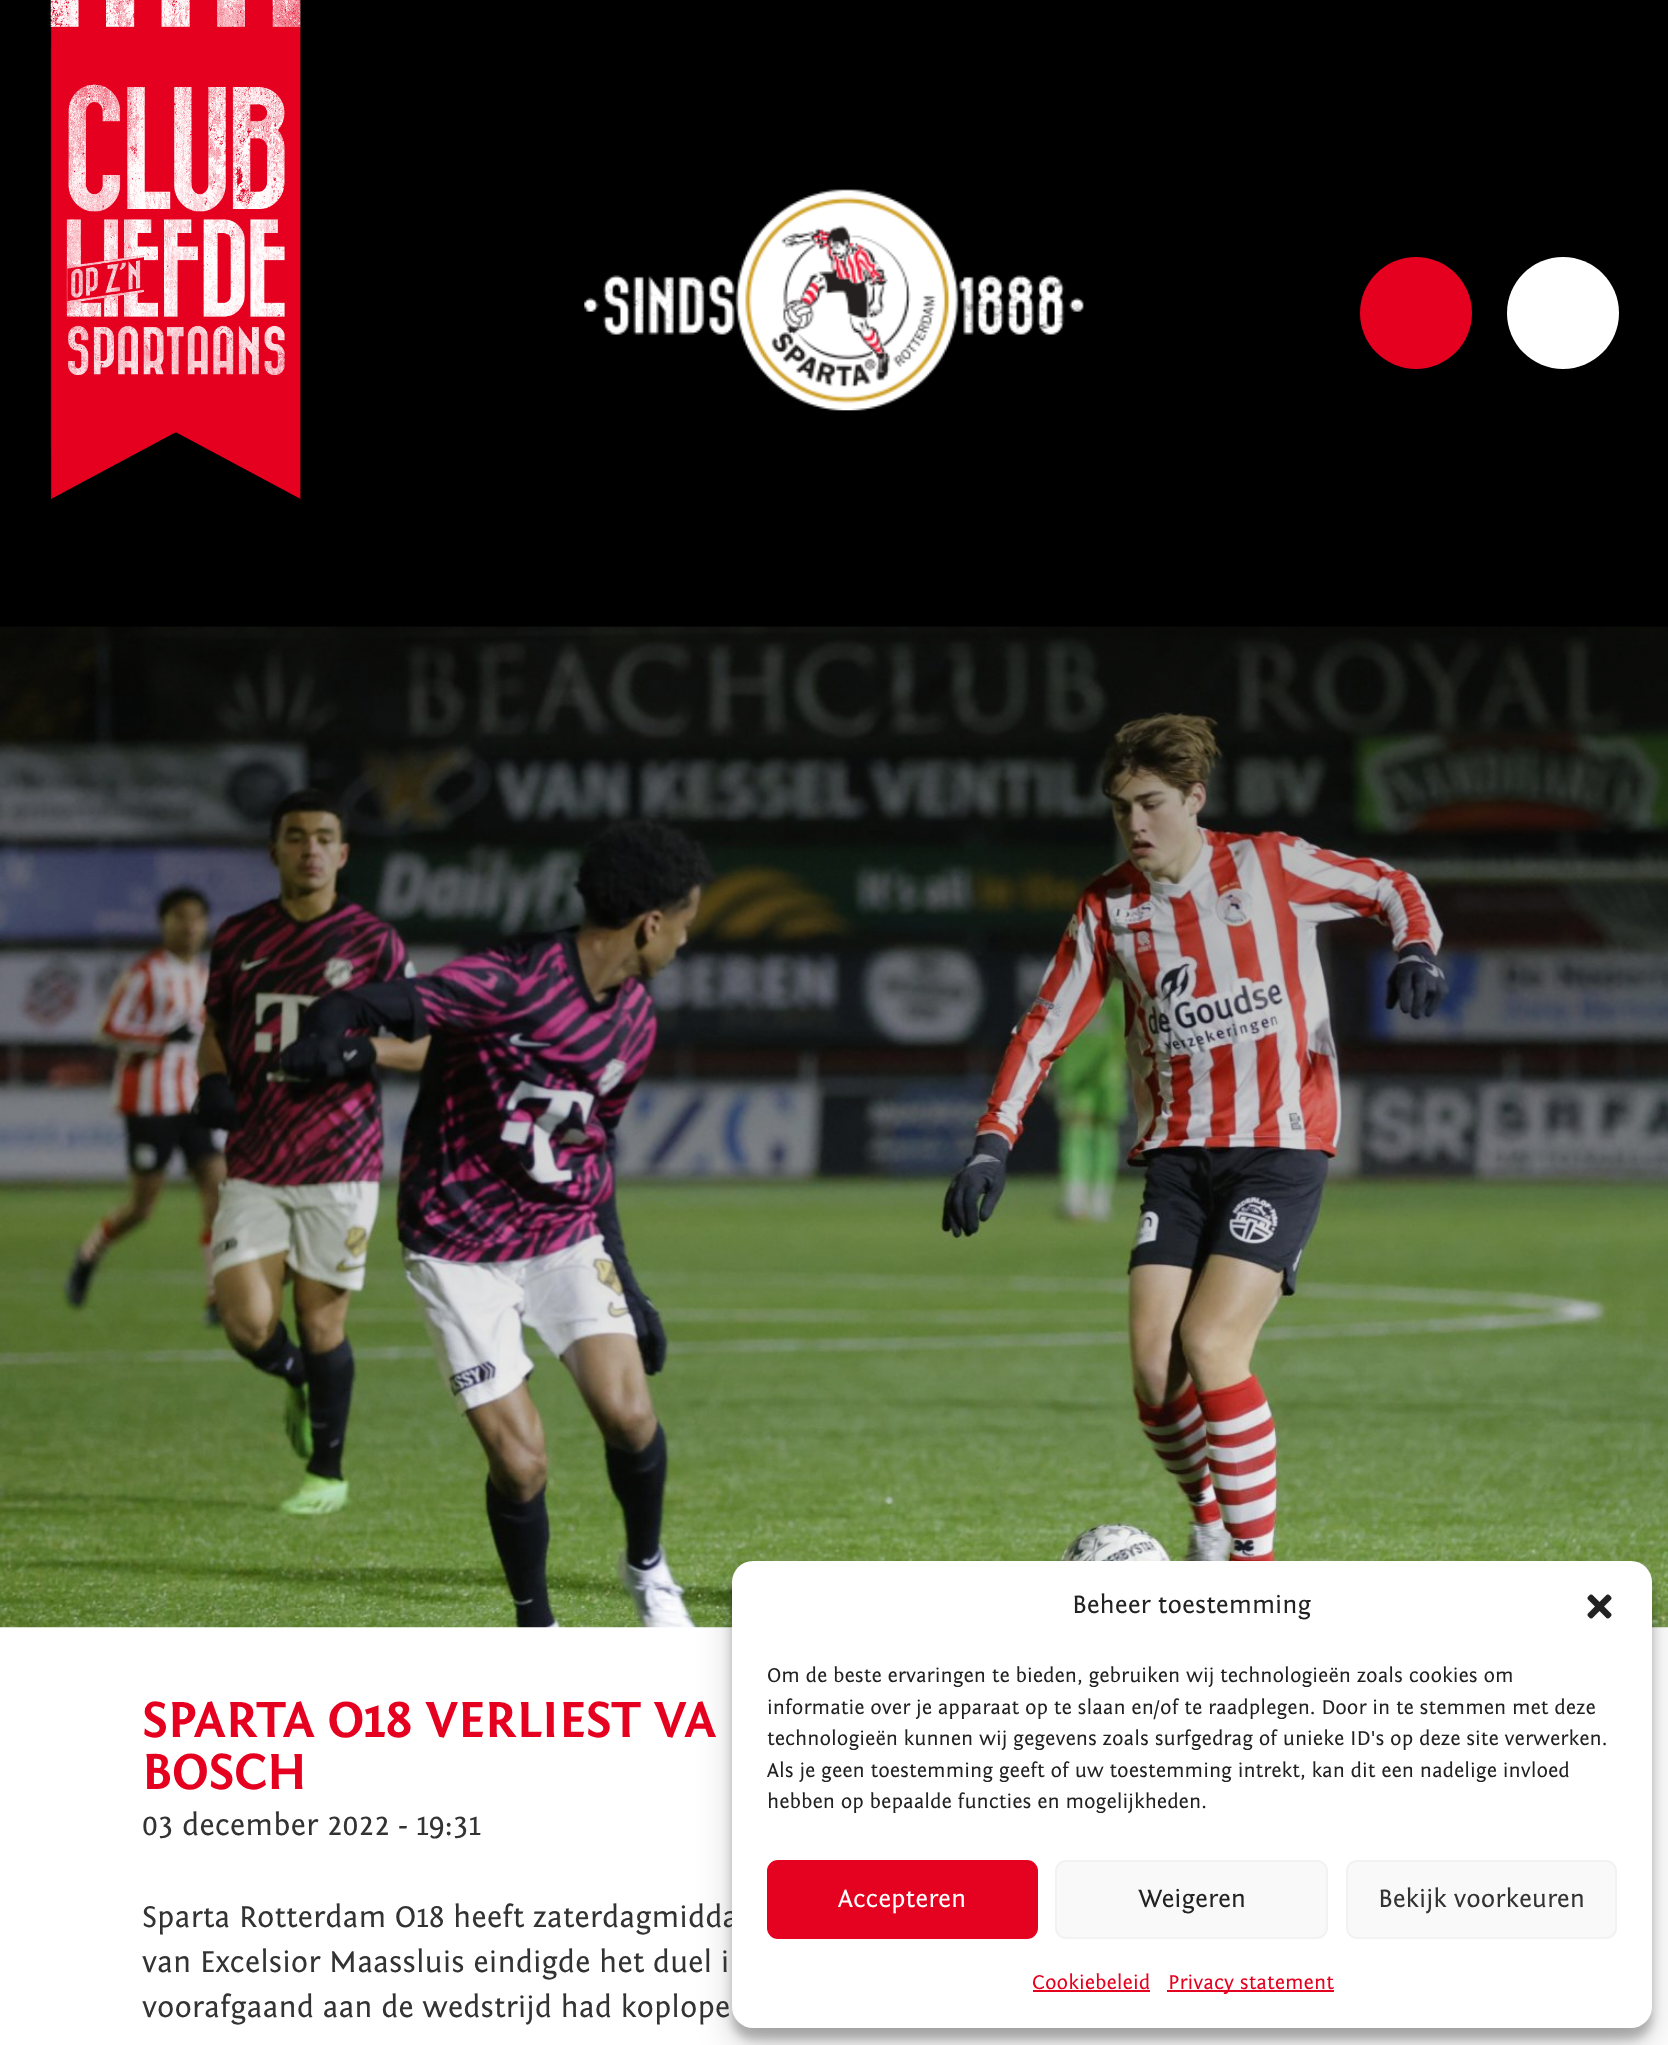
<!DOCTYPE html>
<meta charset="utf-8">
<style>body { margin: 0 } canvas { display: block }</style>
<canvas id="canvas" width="1668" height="2045"></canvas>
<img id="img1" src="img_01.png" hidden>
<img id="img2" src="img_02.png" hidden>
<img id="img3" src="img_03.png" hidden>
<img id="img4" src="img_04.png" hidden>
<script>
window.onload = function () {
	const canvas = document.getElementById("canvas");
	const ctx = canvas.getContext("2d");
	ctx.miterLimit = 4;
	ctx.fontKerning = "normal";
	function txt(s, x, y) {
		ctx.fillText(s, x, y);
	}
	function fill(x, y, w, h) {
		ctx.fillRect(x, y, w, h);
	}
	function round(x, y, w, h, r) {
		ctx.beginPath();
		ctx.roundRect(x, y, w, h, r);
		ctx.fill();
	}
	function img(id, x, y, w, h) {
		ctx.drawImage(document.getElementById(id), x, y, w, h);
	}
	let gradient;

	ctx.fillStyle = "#000000";
	fill(0, 0, 1668, 2045);
	img("img1", 50, 0, 251, 501);
	img("img2", 584, 189, 500, 222);
	ctx.fillStyle = "#E50020";
	ctx.beginPath();
	ctx.arc(1416, 313, 56, 0, Math.PI * 2);
	ctx.fill();
	ctx.fillStyle = "#FFFFFF";
	ctx.beginPath();
	ctx.arc(1563, 313, 56, 0, Math.PI * 2);
	ctx.fill();
	fill(0, 1627, 1668, 418);
	img("img3", 0, 626, 1668, 1002);
	gradient = ctx.createLinearGradient(835, 626, 835, 1628);
	gradient.addColorStop(0, "rgba(0, 0, 0, 0.35)");
	gradient.addColorStop(1, "rgba(0, 0, 0, 0)");
	ctx.fillStyle = gradient;
	fill(0, 627, 1668, 939);
	ctx.fillStyle = "rgba(0, 0, 0, 0.23)";
	ctx.filter = "blur(5px)";
	ctx.beginPath();
	ctx.roundRect(732, 1572, 920, 467, 21);
	ctx.fill();
	ctx.filter = "none";
	ctx.fillStyle = "rgba(0, 0, 0, 0.19)";
	ctx.filter = "blur(17.5px)";
	ctx.beginPath();
	ctx.roundRect(732, 1579, 920, 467, 21);
	ctx.fill();
	ctx.filter = "none";
	ctx.font = "bold 52.5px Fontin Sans";
	ctx.fillStyle = "#E50020";
	txt("SPARTA O18 VERLIEST VA", 142, 1737);
	txt("BOSCH", 142, 1789);
	ctx.font = "31.5px Fontin Sans";
	ctx.fillStyle = "#333333";
	txt("03 december 2022 - 19:31", 142, 1835);
	txt("Sparta Rotterdam O18 heeft zaterdagmidda", 142, 1927);
	txt("van Excelsior Maassluis eindigde het duel i", 142, 1972);
	txt("voorafgaand aan de wedstrijd had koplope", 142, 2017);
	ctx.fillStyle = "#FFFFFF";
	round(732, 1561, 920, 467, 21);
	ctx.font = "26.25px Fontin Sans";
	ctx.fillStyle = "#222222";
	txt("Beheer toestemming", 1072, 1613);
	img("img4", 1587, 1594, 25, 25);
	ctx.font = "21px Fontin Sans";
	txt("Om de beste ervaringen te bieden, gebruiken wij technologieën zoals cookies om", 767, 1682);
	txt("informatie over je apparaat op te slaan en/of te raadplegen. Door in te stemmen met deze", 767, 1714);
	txt("technologieën kunnen wij gegevens zoals surfgedrag of unieke ID's op deze site verwerken.", 767, 1745);
	txt("Als je geen toestemming geeft of uw toestemming intrekt, kan dit een nadelige invloed", 767, 1777);
	txt("hebben op bepaalde functies en mogelijkheden.", 767, 1808);
	ctx.fillStyle = "#E50120";
	ctx.beginPath();
	ctx.roundRect(768, 1861, 269, 77, 10);
	ctx.fill();
	ctx.strokeStyle = "#E50120";
	ctx.lineWidth = 2;
	ctx.stroke();
	ctx.font = "26.25px Fontin Sans";
	ctx.fillStyle = "#FFFFFF";
	txt("Accepteren", 838, 1907);
	ctx.fillStyle = "#F9F9F9";
	ctx.beginPath();
	ctx.roundRect(1056, 1861, 271, 77, 10);
	ctx.fill();
	ctx.strokeStyle = "#F2F2F2";
	ctx.stroke();
	ctx.fillStyle = "#222222";
	txt("Weigeren", 1138, 1907);
	ctx.fillStyle = "#F9F9F9";
	ctx.beginPath();
	ctx.roundRect(1347, 1861, 269, 77, 10);
	ctx.fill();
	ctx.stroke();
	ctx.fillStyle = "#333333";
	txt("Bekijk voorkeuren", 1378, 1907);
	ctx.font = "21px Fontin Sans";
	ctx.fillStyle = "#E50020";
	txt("Cookiebeleid", 1032, 1989);
	ctx.fillStyle = "#E50120";
	fill(1033, 1990, 117, 2);
	fill(1167, 1990, 167, 2);
	ctx.fillStyle = "#E50020";
	txt("Privacy statement", 1168, 1989);
};
</script>
